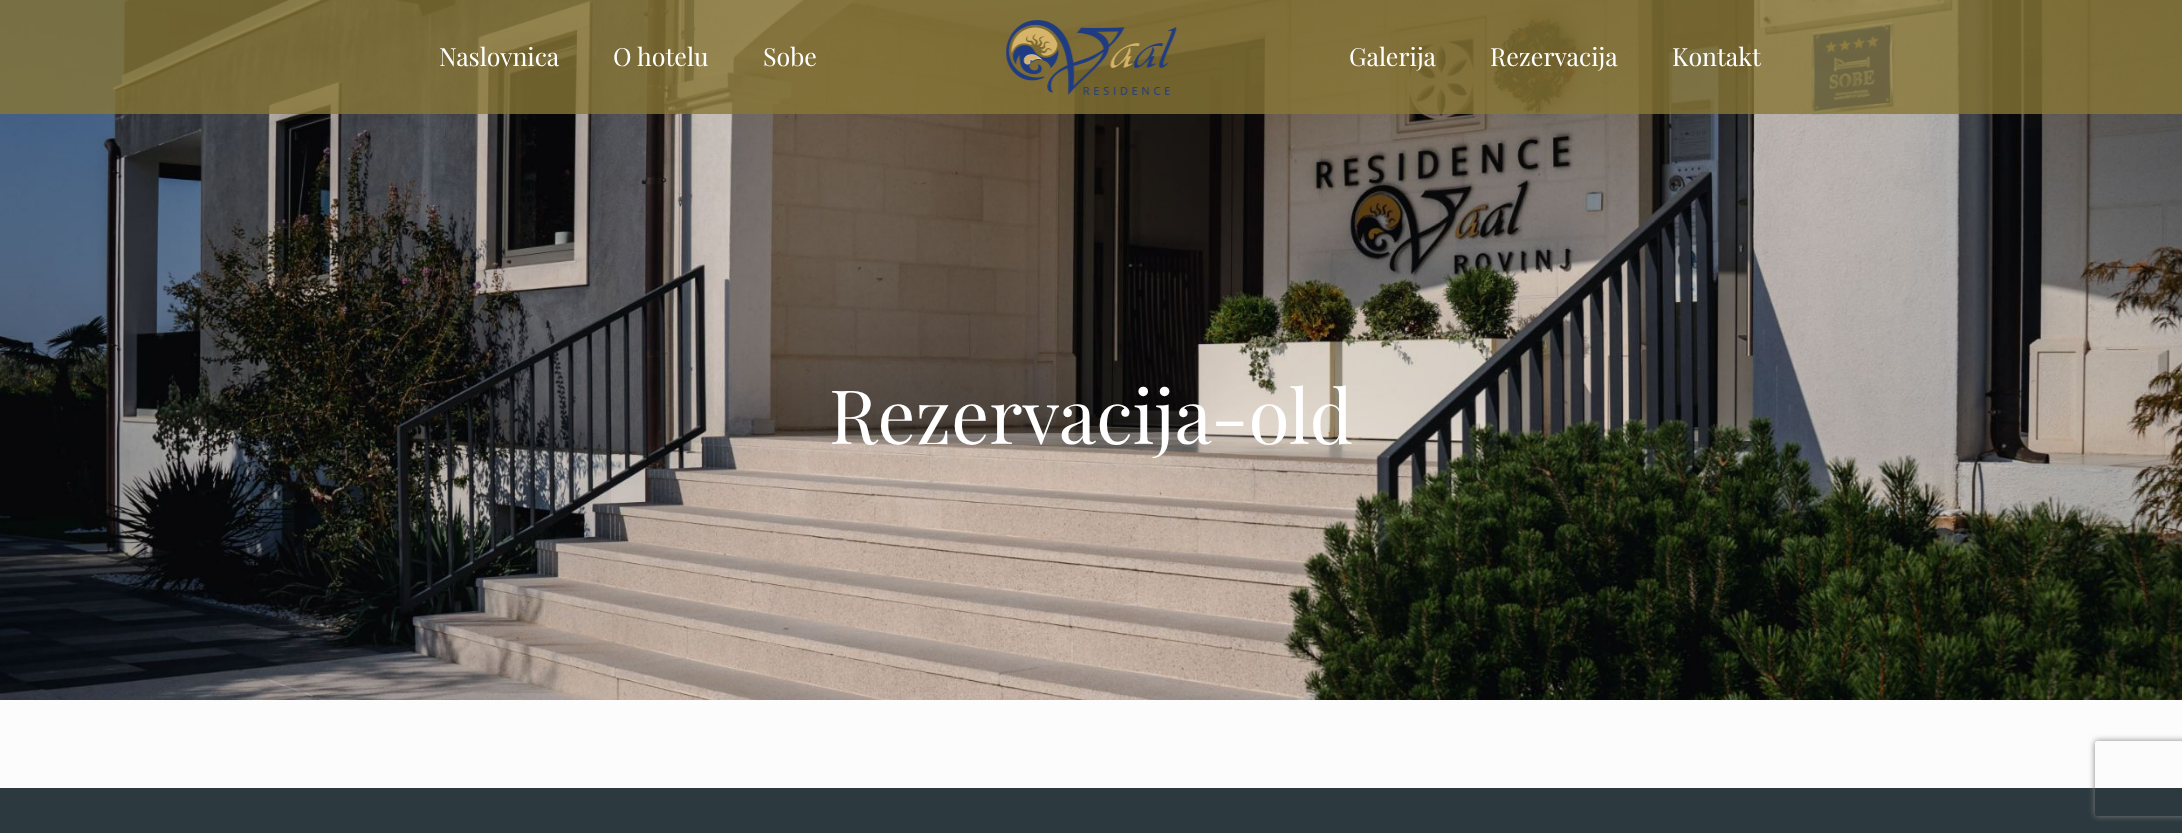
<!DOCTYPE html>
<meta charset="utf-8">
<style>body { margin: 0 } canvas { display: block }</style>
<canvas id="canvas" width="2182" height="833"></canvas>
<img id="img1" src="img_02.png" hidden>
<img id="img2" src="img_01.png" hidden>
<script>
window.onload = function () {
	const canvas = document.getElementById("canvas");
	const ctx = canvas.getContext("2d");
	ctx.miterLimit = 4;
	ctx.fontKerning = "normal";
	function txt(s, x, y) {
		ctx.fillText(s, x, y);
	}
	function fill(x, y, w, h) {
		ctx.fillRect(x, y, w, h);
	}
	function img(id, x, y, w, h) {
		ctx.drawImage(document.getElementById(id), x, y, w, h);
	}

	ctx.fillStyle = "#FFFFFF";
	fill(0, 0, 2182, 833);
	img("img1", 0, 0, 2182, 700);
	ctx.fillStyle = "rgba(136, 119, 54, 0.8)";
	fill(0, 0, 2182, 114);
	img("img2", 1006, 20, 171, 75);
	ctx.fillStyle = "#FCFCFC";
	fill(0, 700, 2182, 88);
	ctx.fillStyle = "#2C3A40";
	fill(0, 788, 2182, 45);
	ctx.save();
	ctx.beginPath();
	ctx.moveTo(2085, 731);
	ctx.lineTo(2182, 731);
	ctx.lineTo(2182, 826);
	ctx.lineTo(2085, 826);
	ctx.closePath();
	ctx.moveTo(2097.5, 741);
	ctx.lineTo(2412.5, 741);
	ctx.bezierCurveTo(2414, 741, 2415, 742, 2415, 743.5);
	ctx.lineTo(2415, 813.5);
	ctx.bezierCurveTo(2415, 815, 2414, 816, 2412.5, 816);
	ctx.lineTo(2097.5, 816);
	ctx.bezierCurveTo(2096, 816, 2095, 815, 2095, 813.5);
	ctx.lineTo(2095, 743.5);
	ctx.bezierCurveTo(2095, 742, 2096, 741, 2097.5, 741);
	ctx.closePath();
	ctx.clip("evenodd");
	ctx.fillStyle = "#808080";
	ctx.filter = "blur(3px)";
	ctx.beginPath();
	ctx.roundRect(2095, 741, 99, 75, 2.5);
	ctx.fill();
	ctx.filter = "none";
	ctx.restore();
	ctx.font = "25px Playfair Display";
	ctx.fillStyle = "#FFFFFF";
	txt("Naslovnica", 439, 66);
	txt("O hotelu", 613, 66);
	txt("Sobe", 763, 66);
	txt("Galerija", 1349, 66);
	txt("Rezervacija", 1490, 66);
	txt("Kontakt", 1672, 66);
	ctx.font = "75px Playfair Display";
	txt("Rezervacija-old", 829, 444);
};
</script>
